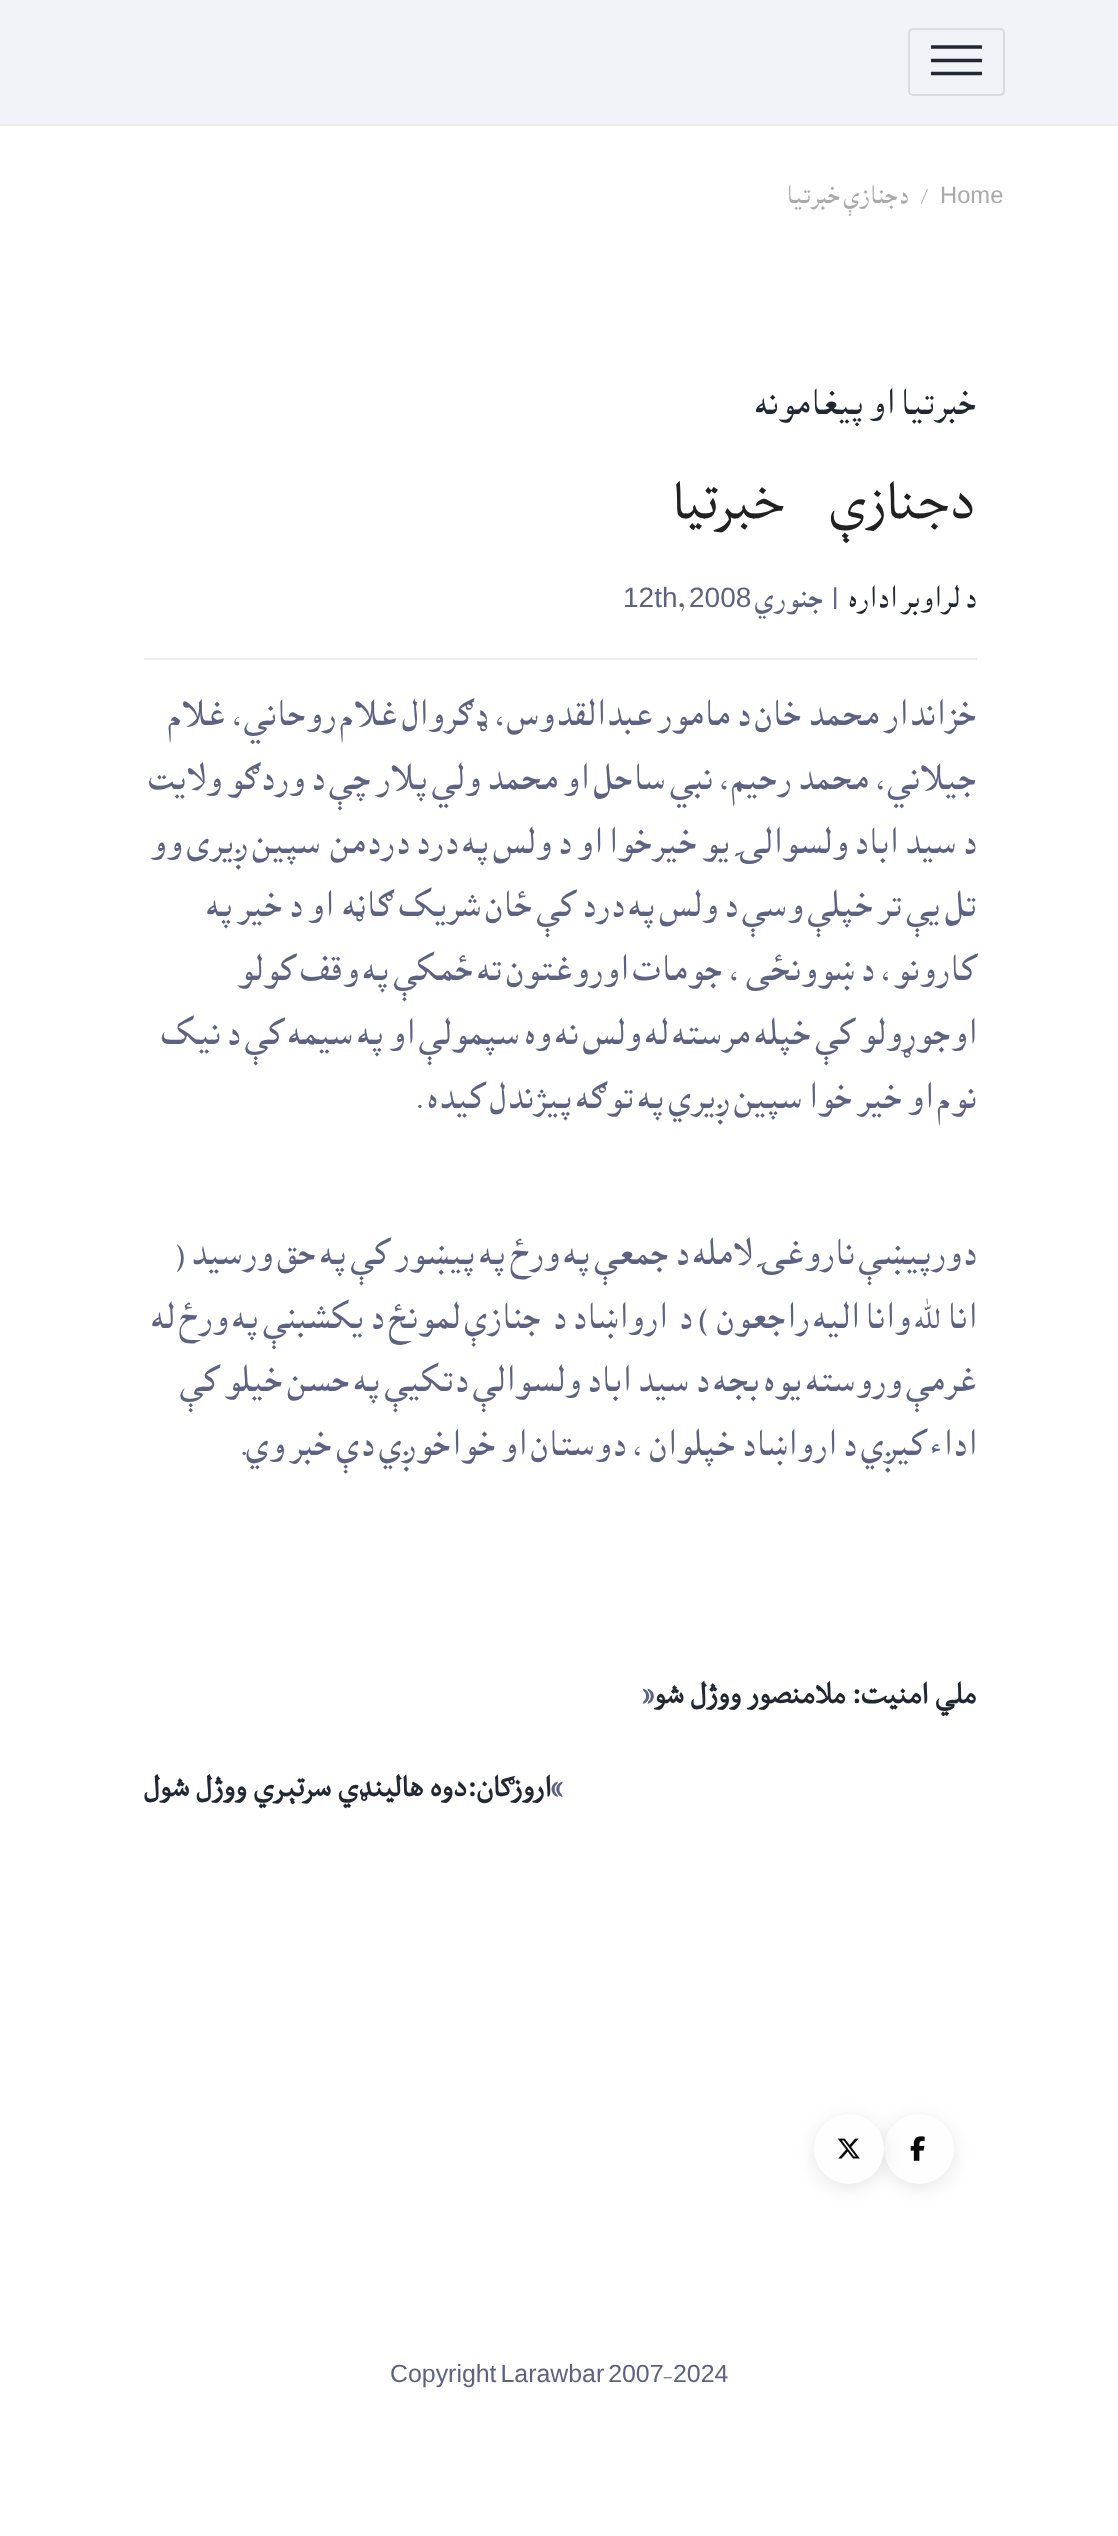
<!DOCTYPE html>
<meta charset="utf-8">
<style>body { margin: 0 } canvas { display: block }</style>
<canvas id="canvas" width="1118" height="2536"></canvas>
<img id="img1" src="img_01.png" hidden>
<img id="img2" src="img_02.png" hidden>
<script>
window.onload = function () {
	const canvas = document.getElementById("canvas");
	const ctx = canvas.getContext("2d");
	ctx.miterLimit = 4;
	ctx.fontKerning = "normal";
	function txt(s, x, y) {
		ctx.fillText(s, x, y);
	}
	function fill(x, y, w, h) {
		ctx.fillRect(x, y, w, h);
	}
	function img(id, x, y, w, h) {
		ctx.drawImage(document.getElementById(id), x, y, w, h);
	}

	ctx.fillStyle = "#FFFFFF";
	fill(0, 0, 1118, 2536);
	ctx.fillStyle = "#F0F4F9";
	fill(0, 0, 1118, 124);
	ctx.fillStyle = "#EEEEEE";
	fill(0, 124, 1118, 2);
	ctx.beginPath();
	ctx.roundRect(909, 29, 95, 66, 4);
	ctx.strokeStyle = "#D8DCE0";
	ctx.lineWidth = 2;
	ctx.stroke();
	ctx.save();
	ctx.beginPath();
	ctx.rect(931, 37, 51, 51);
	ctx.clip();
	ctx.beginPath();
	ctx.moveTo(931, 47);
	ctx.lineTo(981.5, 47);
	ctx.moveTo(931, 60.5);
	ctx.lineTo(981.5, 60.5);
	ctx.moveTo(931, 73.5);
	ctx.lineTo(981.5, 73.5);
	ctx.strokeStyle = "#212832";
	ctx.lineWidth = 3.4;
	ctx.lineCap = "round";
	ctx.stroke();
	ctx.restore();
	fill(144, 658, 833, 2);
	ctx.fillStyle = "rgba(0, 0, 0, 0.1)";
	ctx.filter = "blur(9px)";
	ctx.beginPath();
	ctx.roundRect(884, 2118, 70, 70, 35);
	ctx.fill();
	ctx.filter = "none";
	ctx.fillStyle = "#FFFEFE";
	ctx.beginPath();
	ctx.arc(919, 2149, 35, 0, Math.PI * 2);
	ctx.fill();
	img("img1", 910, 2136, 15, 25);
	ctx.fillStyle = "rgba(0, 0, 0, 0.1)";
	ctx.filter = "blur(9px)";
	ctx.beginPath();
	ctx.roundRect(814, 2118, 70, 70, 35);
	ctx.fill();
	ctx.filter = "none";
	ctx.fillStyle = "#FFFEFE";
	ctx.beginPath();
	ctx.arc(849, 2149, 35, 0, Math.PI * 2);
	ctx.fill();
	img("img2", 837, 2138, 23, 21);
	ctx.font = "23.75px Liberation Sans";
	ctx.fillStyle = "#AAAAAA";
	txt("Home", 940, 203);
	ctx.font = "23.75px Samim";
	txt("/", 920, 203);
	ctx.direction = "rtl";
	txt("دجنازې خبرتيا", 908, 203);
	ctx.font = "33.6px Samim";
	ctx.fillStyle = "#212832";
	txt("خبرتیا او پيغامونه", 976, 414);
	ctx.letterSpacing = "-2.5px";
	ctx.wordSpacing = "32px";
	ctx.font = "61.5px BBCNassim";
	ctx.fillStyle = "#212121";
	txt("دجنازې خبرتيا", 976, 518);
	ctx.letterSpacing = "0px";
	ctx.wordSpacing = "0px";
	ctx.font = "28px Samim";
	ctx.fillStyle = "#212832";
	txt("د لراوبر اداره", 976, 607);
	ctx.fillStyle = "#5E6282";
	txt("| جنوري", 843, 607);
	ctx.direction = "ltr";
	ctx.font = "28px Liberation Sans";
	txt("2008", 689, 607);
	ctx.font = "28px Samim";
	txt(",", 677, 607);
	ctx.font = "28px Liberation Sans";
	txt("12th", 623, 607);
	ctx.direction = "rtl";
	ctx.font = "33.6px Samim";
	txt("خزاندار محمد خان د مامور عبدالقدوس، ډګروال غلام روحاني، غلام", 976, 725);
	txt("جیلاني، محمد رحیم، نبي ساحل او محمد ولي پلار چې د وردګو ولایت", 976, 789);
	txt("د سید اباد ولسوالۍ یو خیرخوا او د ولس په درد دردمن  سپین ږیری وو", 976, 853);
	txt("تل یې تر خپلې وسې د ولس په درد کې ځان شریک ګاڼه  او د خير په", 976, 916);
	txt("کارونو، د ښوونځی ، جومات اوروغتون ته ځمکې په وقف کولو", 976, 980);
	txt("اوجوړولو کې خپله مرسته له ولس نه وه سپمولې او په سیمه کې د نیک", 976, 1044);
	txt("نوم او خیر خوا سپین ږیري په توګه پیژندل کیده .", 976, 1108);
	txt("دورپیښې ناروغۍ لامله د جمعې په ورځ په پیښور کې په حق ورسید (", 976, 1264);
	txt("انا لله وانا اليه راجعون ) د  ارواښاد د  جنازې لمونځ د یکشبنې په ورځ له", 976, 1328);
	txt("غرمې وروسته یوه بجه د سید اباد ولسوالې دتکیې په حسن خیلو کې", 976, 1391);
	txt("اداء کیږي د ارواښاد خپلوان ، دوستان او خواخوږي دې خبر وي.", 976, 1455);
	ctx.font = "bold 33.6px BBCNassim";
	ctx.fillStyle = "#212832";
	txt("ملي امنيت: ملامنصور ووژل شو", 976, 1703);
	ctx.direction = "ltr";
	ctx.fillStyle = "#5E6282";
	txt("»", 641, 1703);
	txt("«", 550, 1796);
	ctx.direction = "rtl";
	ctx.fillStyle = "#212832";
	txt("اروزګان:دوه هالينډي سرتېري ووژل شول", 551, 1796);
	ctx.direction = "ltr";
	ctx.font = "24.9px Liberation Sans";
	ctx.fillStyle = "#5E6282";
	txt("2024", 673, 2382);
	ctx.font = "24.9px Samim";
	txt("-", 663, 2382);
	ctx.wordSpacing = "-3px";
	ctx.font = "24.9px Liberation Sans";
	txt("Copyright Larawbar 2007", 390, 2382);
};
</script>
